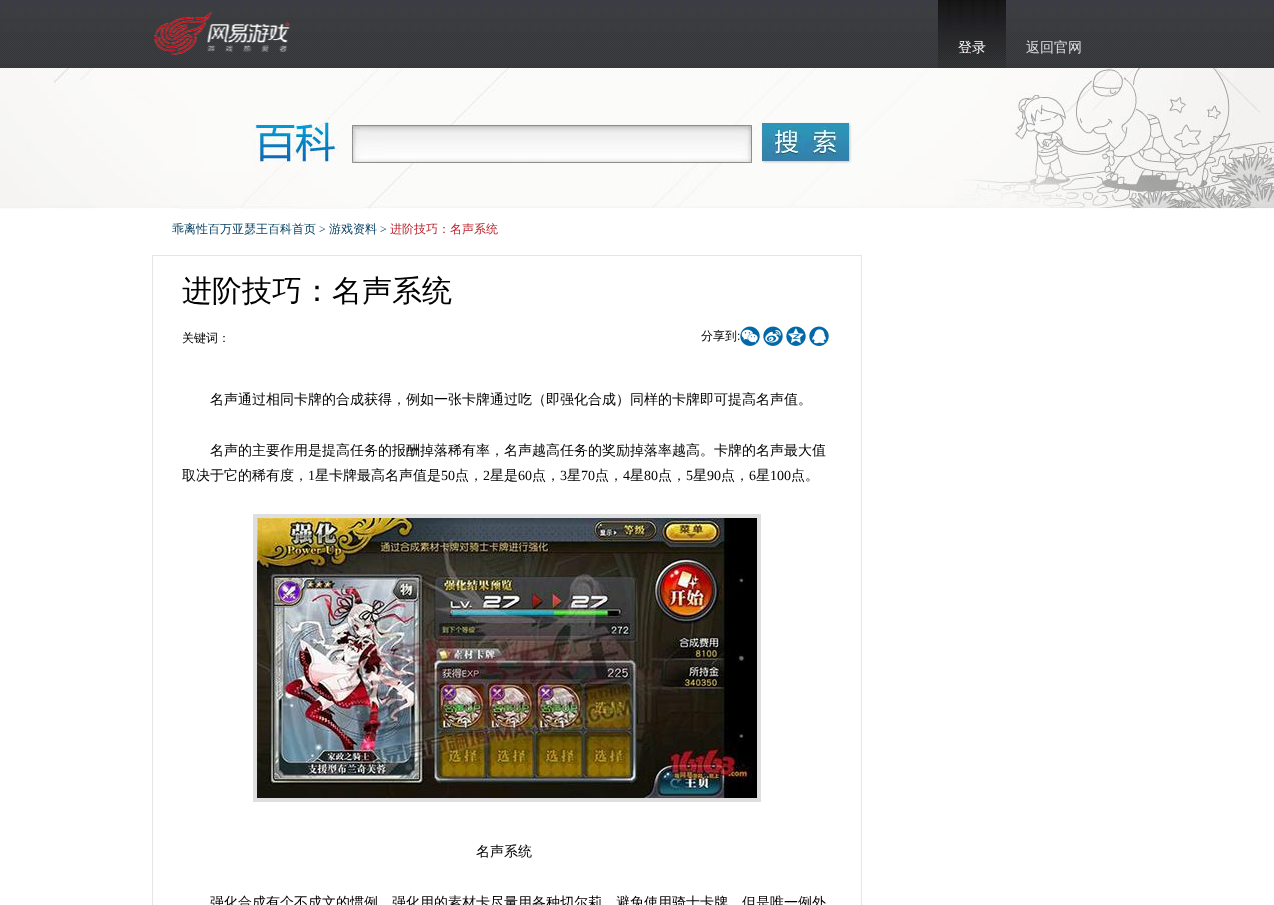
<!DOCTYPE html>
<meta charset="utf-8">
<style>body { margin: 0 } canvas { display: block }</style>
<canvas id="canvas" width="1274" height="905"></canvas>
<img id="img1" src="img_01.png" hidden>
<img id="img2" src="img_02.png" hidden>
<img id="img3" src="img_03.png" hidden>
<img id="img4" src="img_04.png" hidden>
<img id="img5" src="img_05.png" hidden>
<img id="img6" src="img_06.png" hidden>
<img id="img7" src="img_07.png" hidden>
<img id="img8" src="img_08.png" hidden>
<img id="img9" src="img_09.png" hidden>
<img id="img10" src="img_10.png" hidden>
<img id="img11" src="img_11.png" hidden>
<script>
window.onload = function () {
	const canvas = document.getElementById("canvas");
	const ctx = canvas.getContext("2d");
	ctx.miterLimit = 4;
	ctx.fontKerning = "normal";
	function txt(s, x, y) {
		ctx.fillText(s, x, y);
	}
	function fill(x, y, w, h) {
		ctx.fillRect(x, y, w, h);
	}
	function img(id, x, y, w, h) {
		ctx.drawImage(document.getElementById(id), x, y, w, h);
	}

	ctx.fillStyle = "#FFFFFF";
	fill(0, 0, 1274, 905);
	img("img1", 0, 0, 1274, 68);
	img("img2", 0, 68, 1274, 141);
	img("img3", 154, 12, 136, 43);
	img("img4", 938, 0, 68, 68);
	img("img5", 352, 125, 400, 38);
	ctx.fillStyle = "#C2C2C1";
	ctx.filter = "blur(1px)";
	ctx.beginPath();
	ctx.rect(763, 124, 87, 38);
	ctx.fill();
	ctx.filter = "none";
	img("img6", 762, 123, 87, 38);
	ctx.strokeStyle = "#E5E5E5";
	ctx.strokeRect(152.5, 255.5, 709, 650);
	img("img7", 740, 326, 20, 20);
	img("img8", 763, 326, 20, 20);
	img("img9", 786, 326, 20, 20);
	img("img10", 809, 326, 20, 20);
	ctx.strokeStyle = "#DFDFDF";
	ctx.lineWidth = 4;
	ctx.strokeRect(255, 516, 504, 284);
	img("img11", 257, 518, 500, 280);
	ctx.font = "500 14px WenQuanYi Zen Hei";
	ctx.fillStyle = "#FFFFFF";
	txt("登录", 958, 52);
	ctx.fillStyle = "#DFDFDF";
	txt("返回官网", 1026, 52);
	ctx.font = "500 12px WenQuanYi Zen Hei";
	ctx.fillStyle = "#003B5E";
	txt("乖离性百万亚瑟王百科首页", 172, 233);
	ctx.font = "12px Liberation Serif";
	txt(">", 319, 233);
	ctx.font = "500 12px WenQuanYi Zen Hei";
	txt("游戏资料", 329, 233);
	ctx.font = "12px Liberation Serif";
	txt(">", 380, 233);
	ctx.font = "500 12px WenQuanYi Zen Hei";
	ctx.fillStyle = "#BA1F29";
	txt("进阶技巧：名声系统", 390, 233);
	ctx.font = "500 30px WenQuanYi Zen Hei";
	ctx.fillStyle = "#000000";
	txt("进阶技巧：名声系统", 182, 301);
	ctx.font = "500 12px WenQuanYi Zen Hei";
	txt("关键词：", 182, 342);
	txt("分享到", 701, 340);
	ctx.font = "12px Liberation Sans";
	txt(":", 737, 340);
	ctx.font = "500 14px WenQuanYi Zen Hei";
	txt("名声通过相同卡牌的合成获得，例如一张卡牌通过吃（即强化合成）同样的卡牌即可提高名声值。", 210, 404);
	txt("名声的主要作用是提高任务的报酬掉落稀有率，名声越高任务的奖励掉落率越高。卡牌的名声最大值", 210, 455);
	txt("取决于它的稀有度，", 182, 480);
	ctx.font = "14px Liberation Serif";
	txt("1", 308, 480);
	ctx.font = "500 14px WenQuanYi Zen Hei";
	txt("星卡牌最高名声值是", 315, 480);
	ctx.font = "14px Liberation Serif";
	txt("50", 441, 480);
	ctx.font = "500 14px WenQuanYi Zen Hei";
	txt("点，", 455, 480);
	ctx.font = "14px Liberation Serif";
	txt("2", 483, 480);
	ctx.font = "500 14px WenQuanYi Zen Hei";
	txt("星是", 490, 480);
	ctx.font = "14px Liberation Serif";
	txt("60", 518, 480);
	ctx.font = "500 14px WenQuanYi Zen Hei";
	txt("点，", 532, 480);
	ctx.font = "14px Liberation Serif";
	txt("3", 560, 480);
	ctx.font = "500 14px WenQuanYi Zen Hei";
	txt("星", 567, 480);
	ctx.font = "14px Liberation Serif";
	txt("70", 581, 480);
	ctx.font = "500 14px WenQuanYi Zen Hei";
	txt("点，", 595, 480);
	ctx.font = "14px Liberation Serif";
	txt("4", 623, 480);
	ctx.font = "500 14px WenQuanYi Zen Hei";
	txt("星", 630, 480);
	ctx.font = "14px Liberation Serif";
	txt("80", 644, 480);
	ctx.font = "500 14px WenQuanYi Zen Hei";
	txt("点，", 658, 480);
	ctx.font = "14px Liberation Serif";
	txt("5", 686, 480);
	ctx.font = "500 14px WenQuanYi Zen Hei";
	txt("星", 693, 480);
	ctx.font = "14px Liberation Serif";
	txt("90", 707, 480);
	ctx.font = "500 14px WenQuanYi Zen Hei";
	txt("点，", 721, 480);
	ctx.font = "14px Liberation Serif";
	txt("6", 749, 480);
	ctx.font = "500 14px WenQuanYi Zen Hei";
	txt("星", 756, 480);
	ctx.font = "14px Liberation Serif";
	txt("100", 770, 480);
	ctx.font = "500 14px WenQuanYi Zen Hei";
	txt("点。", 791, 480);
	txt("名声系统", 476, 856);
	txt("强化合成有个不成文的惯例，强化用的素材卡尽量用各种切尔莉，避免使用骑士卡牌，但是唯一例外", 210, 907);
};
</script>
